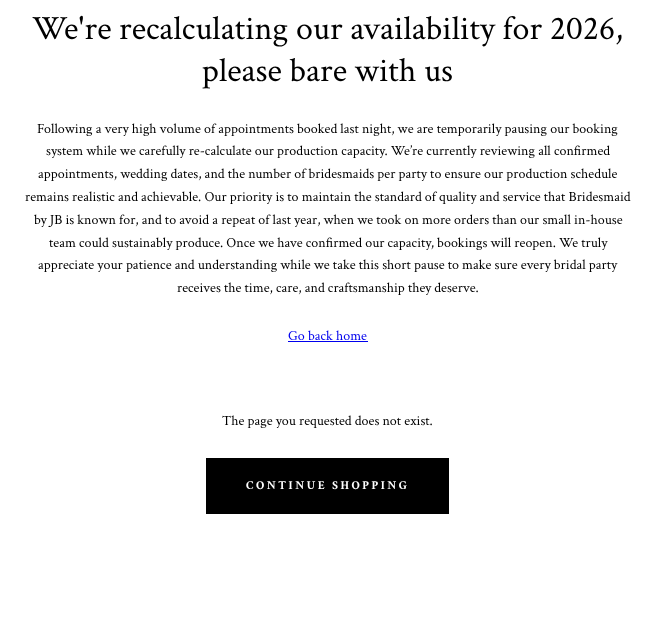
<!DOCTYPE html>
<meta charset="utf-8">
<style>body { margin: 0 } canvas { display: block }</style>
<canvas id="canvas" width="654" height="624"></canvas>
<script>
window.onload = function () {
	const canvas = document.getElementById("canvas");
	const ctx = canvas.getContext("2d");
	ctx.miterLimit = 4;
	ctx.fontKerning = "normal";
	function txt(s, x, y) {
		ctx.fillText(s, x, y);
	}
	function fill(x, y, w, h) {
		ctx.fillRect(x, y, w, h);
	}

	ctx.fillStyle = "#FFFFFF";
	fill(0, 0, 654, 624);
	ctx.fillStyle = "#0000EE";
	fill(288, 341, 80, 1);
	ctx.fillStyle = "#000000";
	fill(206, 458, 243, 56);
	ctx.font = "34px Crimson Text";
	txt("We're recalculating our availability for 2026,", 32, 39);
	txt("please bare with us", 202, 81);
	ctx.font = "14px Crimson Text";
	txt("Following a very high volume of appointments booked last night, we are temporarily pausing our booking", 37, 133);
	txt("system while we carefully re-calculate our production capacity. We’re currently reviewing all confirmed", 46, 155);
	txt("appointments, wedding dates, and the number of bridesmaids per party to ensure our production schedule", 38, 178);
	txt("remains realistic and achievable. Our priority is to maintain the standard of quality and service that Bridesmaid", 25, 201);
	txt("by JB is known for, and to avoid a repeat of last year, when we took on more orders than our small in-house", 34, 224);
	txt("team could sustainably produce. Once we have confirmed our capacity, bookings will reopen. We truly", 49, 247);
	txt("appreciate your patience and understanding while we take this short pause to make sure every bridal party", 38, 269);
	txt("receives the time, care, and craftsmanship they deserve.", 177, 292);
	ctx.fillStyle = "#0000EE";
	txt("Go back home", 288, 340);
	ctx.fillStyle = "#000000";
	txt("The page you requested does not exist.", 222, 425);
	ctx.letterSpacing = "2.5px";
	ctx.font = "bold 12px Crimson Text";
	ctx.fillStyle = "#FFFFFF";
	txt("CONTINUE SHOPPING", 246, 489);
};
</script>
